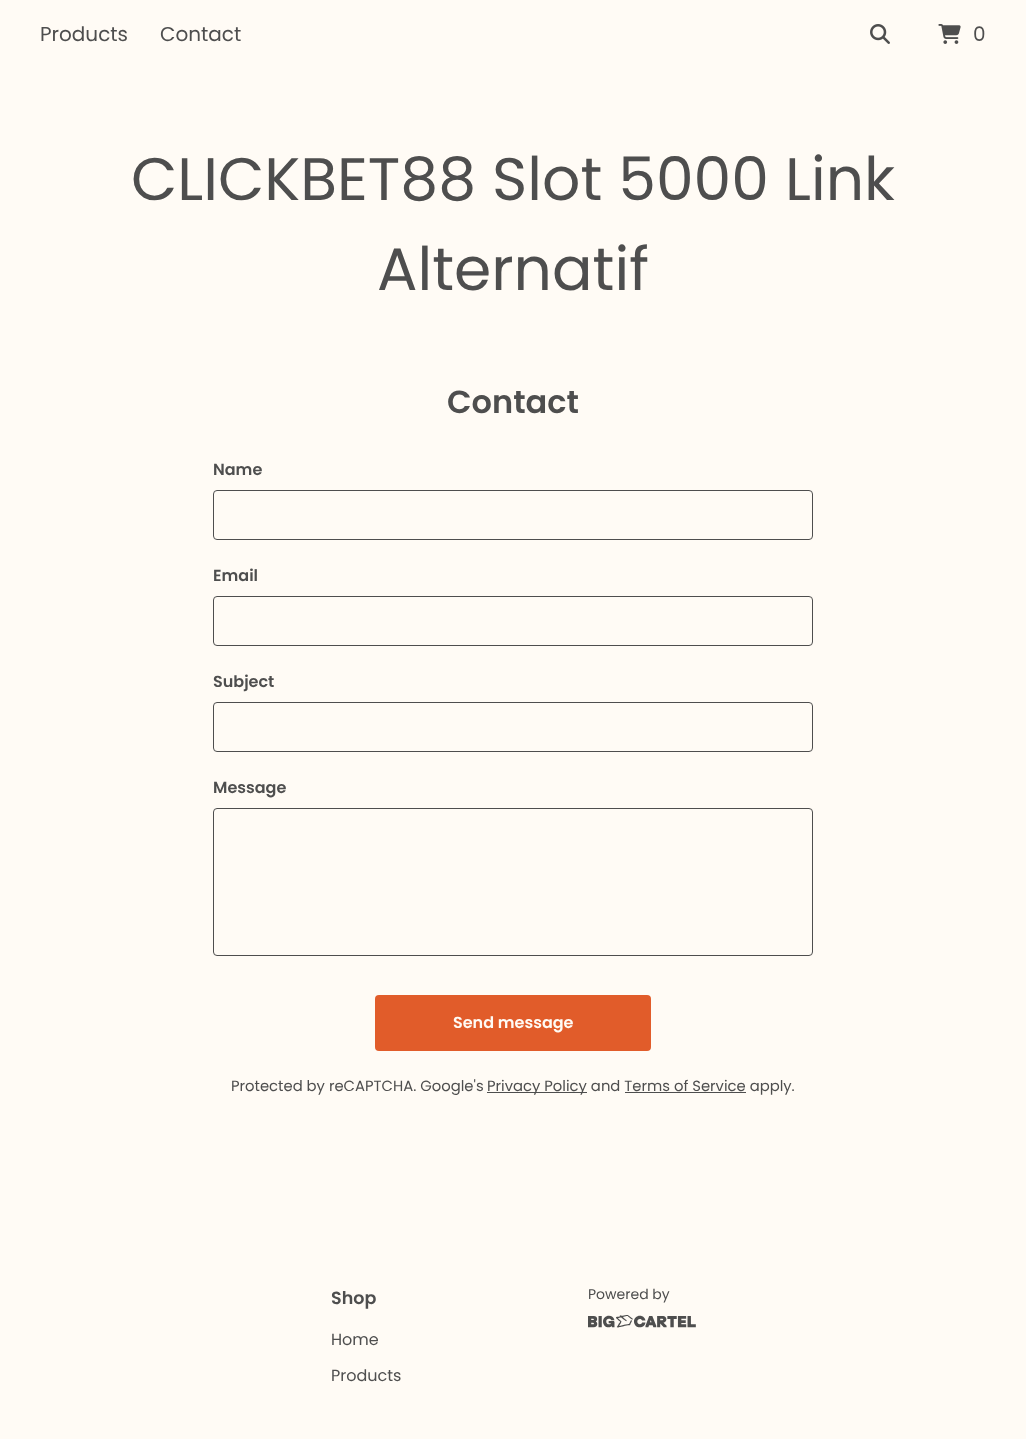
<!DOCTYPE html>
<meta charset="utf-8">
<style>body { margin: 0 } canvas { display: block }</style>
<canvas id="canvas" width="1026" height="1439"></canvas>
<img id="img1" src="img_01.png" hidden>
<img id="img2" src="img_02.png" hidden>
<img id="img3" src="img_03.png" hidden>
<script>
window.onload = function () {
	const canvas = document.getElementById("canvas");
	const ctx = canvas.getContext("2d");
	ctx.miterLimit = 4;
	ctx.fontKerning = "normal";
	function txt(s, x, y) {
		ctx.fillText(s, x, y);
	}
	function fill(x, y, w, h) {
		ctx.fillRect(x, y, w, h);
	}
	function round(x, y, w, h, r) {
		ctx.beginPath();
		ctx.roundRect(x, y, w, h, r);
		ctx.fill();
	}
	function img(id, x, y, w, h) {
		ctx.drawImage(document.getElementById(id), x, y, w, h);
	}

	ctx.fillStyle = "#FFFBF5";
	fill(0, 0, 1026, 1439);
	img("img1", 870, 24, 20, 20);
	img("img2", 938, 24, 23, 20);
	ctx.beginPath();
	ctx.roundRect(213.5, 490.5, 599, 49, 3.5);
	ctx.strokeStyle = "#4E4E4E";
	ctx.stroke();
	ctx.beginPath();
	ctx.roundRect(213.5, 596.5, 599, 49, 3.5);
	ctx.stroke();
	ctx.beginPath();
	ctx.roundRect(213.5, 702.5, 599, 49, 3.5);
	ctx.stroke();
	ctx.beginPath();
	ctx.roundRect(213.5, 808.5, 599, 147, 3.5);
	ctx.stroke();
	ctx.fillStyle = "#E15C2A";
	round(375, 995, 276, 56, 4);
	ctx.fillStyle = "#4E4E4E";
	fill(487, 1092, 100, 1);
	fill(625, 1092, 121, 1);
	img("img3", 588, 1315, 108, 13);
	ctx.font = "20px Poppins";
	txt("Products", 40, 41);
	txt("Contact", 160, 41);
	txt("0", 973, 41);
	ctx.font = "60px Poppins";
	txt("CLICKBET88 Slot 5000 Link", 131, 200);
	txt("Alternatif", 377, 290);
	ctx.font = "600 32px Poppins";
	txt("Contact", 447, 413);
	ctx.font = "600 16px Poppins";
	txt("Name", 213, 475);
	txt("Email", 213, 581);
	txt("Subject", 213, 687);
	txt("Message", 213, 793);
	ctx.fillStyle = "#FFFBF5";
	txt("Send message", 453, 1028);
	ctx.font = "14.8px Poppins";
	ctx.fillStyle = "#4E4E4E";
	txt("Protected by reCAPTCHA. Google's", 231, 1091);
	txt("Privacy Policy and Terms of Service apply.", 487, 1091);
	ctx.font = "600 17.5px Poppins";
	txt("Shop", 331, 1304);
	ctx.font = "16px Poppins";
	txt("Home", 331, 1345);
	txt("Products", 331, 1381);
	ctx.font = "14px Poppins";
	txt("Powered by", 588, 1299);
};
</script>
